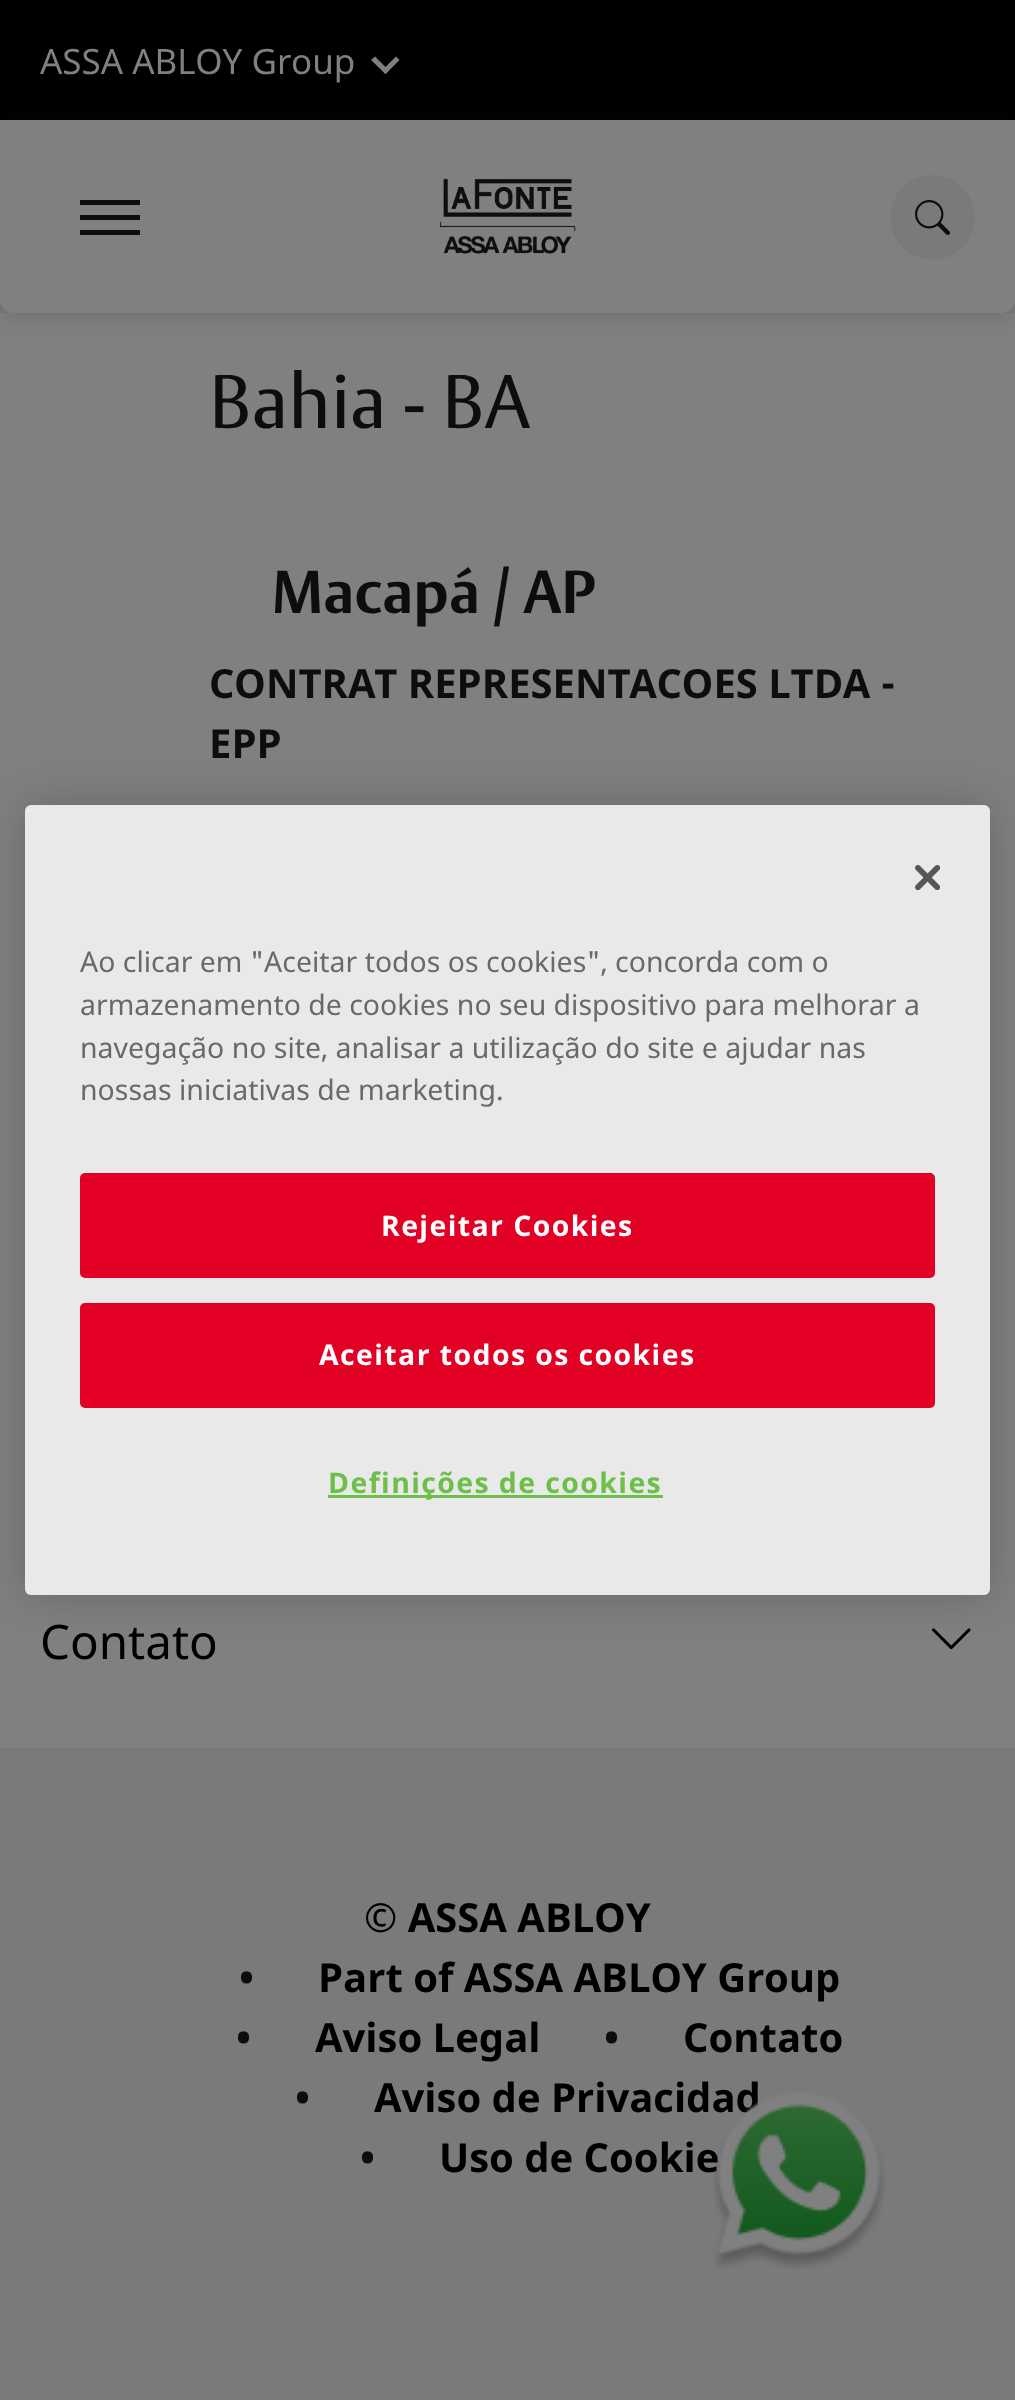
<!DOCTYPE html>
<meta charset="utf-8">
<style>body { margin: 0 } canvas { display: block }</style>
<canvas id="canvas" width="1015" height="2400"></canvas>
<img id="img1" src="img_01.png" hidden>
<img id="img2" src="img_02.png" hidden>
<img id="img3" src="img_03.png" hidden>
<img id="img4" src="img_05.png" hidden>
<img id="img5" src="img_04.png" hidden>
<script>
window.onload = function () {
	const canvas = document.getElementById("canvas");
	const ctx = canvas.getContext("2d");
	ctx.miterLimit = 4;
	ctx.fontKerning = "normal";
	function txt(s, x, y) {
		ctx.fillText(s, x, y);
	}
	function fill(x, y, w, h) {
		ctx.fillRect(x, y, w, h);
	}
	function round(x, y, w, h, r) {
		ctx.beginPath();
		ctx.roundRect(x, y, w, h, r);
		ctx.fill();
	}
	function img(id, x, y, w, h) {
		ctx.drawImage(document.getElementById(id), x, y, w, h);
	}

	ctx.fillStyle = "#808080";
	fill(0, 0, 1015, 2400);
	ctx.fillStyle = "#7A7A7A";
	fill(0, 300, 1015, 13);
	ctx.fillStyle = "#000000";
	fill(0, 0, 1015, 120);
	ctx.fillStyle = "#808080";
	ctx.beginPath();
	ctx.moveTo(396, 56.5);
	ctx.lineTo(399.5, 60);
	ctx.lineTo(385.5, 74);
	ctx.lineTo(382, 70.5);
	ctx.closePath();
	ctx.fill();
	ctx.beginPath();
	ctx.moveTo(375, 56.5);
	ctx.lineTo(389, 70.5);
	ctx.lineTo(385.5, 74);
	ctx.lineTo(371, 60);
	ctx.closePath();
	ctx.fill();
	ctx.fillStyle = "rgba(50, 50, 50, 0.2)";
	ctx.filter = "blur(10px)";
	ctx.beginPath();
	ctx.roundRect(0, 125, 1015, 193, 13);
	ctx.fill();
	ctx.filter = "none";
	ctx.fillStyle = "#808080";
	ctx.beginPath();
	ctx.roundRect(0, 120, 1015, 193, [0, 0, 13, 13]);
	ctx.fill();
	ctx.fillStyle = "#0D0D0D";
	fill(80, 200, 60, 5);
	fill(80, 215, 60, 5);
	fill(80, 230, 60, 5);
	img("img1", 439, 178, 137, 76);
	ctx.fillStyle = "#7A7A7A";
	ctx.beginPath();
	ctx.arc(932.5, 217.5, 42.5, 0, Math.PI * 2);
	ctx.fill();
	img("img2", 915, 200, 35, 35);
	fill(0, 1748, 1015, 652);
	img("img3", 932, 1628, 39, 22);
	ctx.fillStyle = "rgba(0, 0, 0, 0.2)";
	ctx.filter = "blur(22.5px)";
	ctx.beginPath();
	ctx.roundRect(25, 805, 965, 790, 6);
	ctx.fill();
	ctx.filter = "none";
	ctx.fillStyle = "#E9E9E9";
	round(25, 805, 965, 790, 6);
	img("img4", 915, 865, 25, 25);
	ctx.fillStyle = "#E20025";
	ctx.beginPath();
	ctx.roundRect(81.5, 1174.5, 852, 102, 3.5);
	ctx.fill();
	ctx.strokeStyle = "#E20025";
	ctx.lineWidth = 3;
	ctx.stroke();
	ctx.beginPath();
	ctx.roundRect(81.5, 1304.5, 852, 102, 3.5);
	ctx.fill();
	ctx.stroke();
	ctx.fillStyle = "#6CC04A";
	fill(328, 1495, 335, 3);
	ctx.font = "35px Noto Sans";
	ctx.fillStyle = "#808080";
	txt("ASSA ABLOY Group", 40, 74);
	ctx.font = "75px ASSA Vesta";
	ctx.fillStyle = "#0D0D0D";
	txt("Bahia - BA", 209, 428);
	ctx.font = "bold 60px ASSA Vesta";
	txt("Macapá / AP", 272, 613);
	ctx.font = "bold 40px Noto Sans";
	txt("CONTRAT REPRESENTACOES LTDA -", 209, 698);
	txt("EPP", 209, 758);
	ctx.font = "47.5px Noto Sans";
	ctx.fillStyle = "#000000";
	txt("Contato", 40, 1659);
	ctx.font = "bold 40px Noto Sans";
	txt("© ASSA ABLOY", 364, 1932);
	ctx.fillStyle = "#0D0D0D";
	txt("•", 239, 1992);
	ctx.fillStyle = "#000000";
	txt("Part of ASSA ABLOY Group", 318, 1992);
	ctx.fillStyle = "#0D0D0D";
	txt("•", 236, 2052);
	ctx.fillStyle = "#000000";
	txt("Aviso Legal", 315, 2052);
	ctx.fillStyle = "#0D0D0D";
	txt("•", 604, 2052);
	ctx.fillStyle = "#000000";
	txt("Contato", 683, 2052);
	ctx.fillStyle = "#0D0D0D";
	txt("•", 295, 2112);
	ctx.fillStyle = "#000000";
	txt("Aviso de Privacidad", 374, 2112);
	ctx.fillStyle = "#0D0D0D";
	txt("•", 360, 2172);
	ctx.fillStyle = "#000000";
	txt("Uso de Cookie", 439, 2172);
	img("img5", 713, 2092, 173, 177);
	ctx.font = "28.45px Noto Sans";
	ctx.fillStyle = "#696969";
	txt("Ao clicar em \"Aceitar todos os cookies\", concorda com o", 80, 972);
	txt("armazenamento de cookies no seu dispositivo para melhorar a", 80, 1015);
	txt("navegação no site, analisar a utilização do site e ajudar nas", 80, 1058);
	txt("nossas iniciativas de marketing.", 80, 1100);
	ctx.letterSpacing = "1.4px";
	ctx.font = "bold 28.45px Noto Sans";
	ctx.fillStyle = "#FFFFFF";
	txt("Rejeitar Cookies", 381, 1236);
	txt("Aceitar todos os cookies", 319, 1365);
	ctx.fillStyle = "#6CC04A";
	txt("Definições de cookies", 328, 1493);
};
</script>
